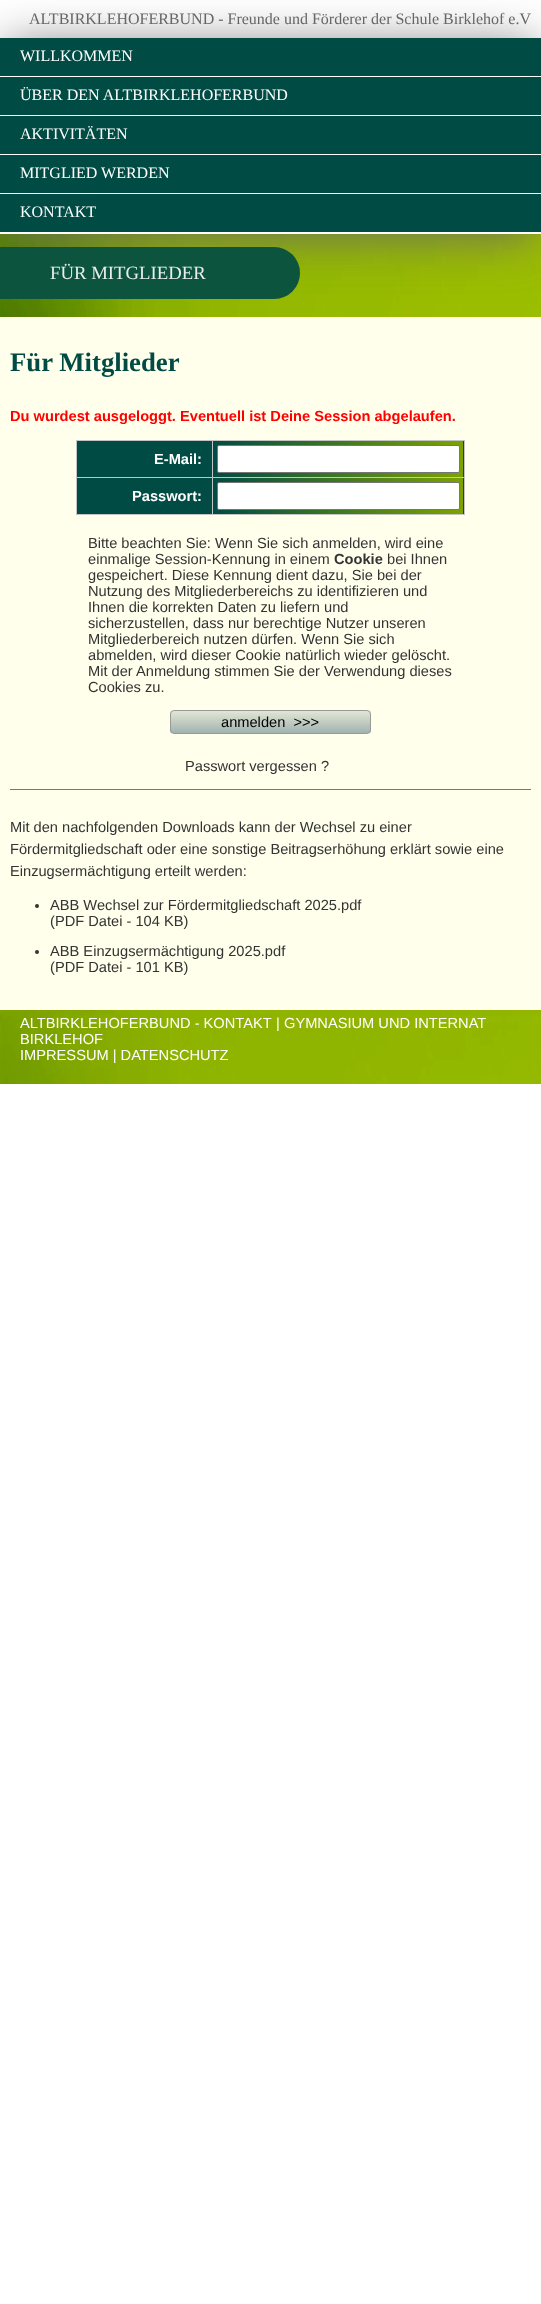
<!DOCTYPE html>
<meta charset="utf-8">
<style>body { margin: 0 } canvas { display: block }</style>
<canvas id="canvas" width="541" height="2304"></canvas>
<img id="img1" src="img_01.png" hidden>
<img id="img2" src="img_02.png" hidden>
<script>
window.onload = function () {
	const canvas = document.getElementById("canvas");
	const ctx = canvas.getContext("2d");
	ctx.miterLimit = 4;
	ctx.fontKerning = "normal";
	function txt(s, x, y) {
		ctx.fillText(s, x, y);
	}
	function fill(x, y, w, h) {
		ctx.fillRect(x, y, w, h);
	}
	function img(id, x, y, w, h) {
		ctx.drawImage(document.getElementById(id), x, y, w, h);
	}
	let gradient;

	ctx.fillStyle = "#FFFFFF";
	fill(0, 0, 541, 2304);
	img("img1", 0, 1010, 541, 74);
	img("img2", 0, 234, 541, 83);
	ctx.fillStyle = "#666666";
	ctx.filter = "blur(25px)";
	ctx.beginPath();
	ctx.rect(5, 48, 531, 186);
	ctx.fill();
	ctx.filter = "none";
	ctx.fillStyle = "#004B44";
	fill(0, 38, 541, 194);
	ctx.fillStyle = "#FFFFFF";
	fill(0, 232, 541, 2);
	fill(0, 76, 541, 1);
	fill(0, 115, 541, 1);
	fill(0, 154, 541, 1);
	fill(0, 193, 541, 1);
	ctx.fillStyle = "rgba(125, 163, 0, 0.9)";
	ctx.beginPath();
	ctx.roundRect(0, 247, 300, 52, [0, 26, 26, 0]);
	ctx.fill();
	ctx.fillStyle = "rgba(0, 75, 68, 0.9)";
	ctx.beginPath();
	ctx.roundRect(0, 247, 300, 52, [0, 26, 26, 0]);
	ctx.fill();
	ctx.fillStyle = "#FFFFEC";
	fill(0, 317, 541, 693);
	ctx.fillStyle = "#004B44";
	fill(77, 441, 135, 36);
	ctx.fillStyle = "#C4C4C4";
	fill(212, 440, 253, 1);
	gradient = ctx.createLinearGradient(463, 460, 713, 460);
	gradient.addColorStop(0, "#004B44");
	gradient.addColorStop(1, "#7DA300");
	ctx.fillStyle = gradient;
	fill(463, 441, 1, 37);
	ctx.fillStyle = "#C4C4C4";
	fill(212, 477, 253, 1);
	gradient = ctx.createLinearGradient(463, 497, 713, 497);
	gradient.addColorStop(0, "#004B44");
	gradient.addColorStop(1, "#7DA300");
	ctx.fillStyle = gradient;
	fill(463, 478, 1, 37);
	ctx.fillStyle = "#C4C4C4";
	fill(464, 477, 1, 38);
	fill(212, 514, 253, 1);
	fill(212, 477, 1, 38);
	fill(76, 477, 137, 1);
	fill(212, 440, 1, 38);
	fill(76, 440, 137, 1);
	fill(76, 514, 137, 1);
	fill(76, 477, 1, 38);
	fill(76, 440, 1, 38);
	gradient = ctx.createLinearGradient(213, 460, 463, 460);
	gradient.addColorStop(0, "#004B44");
	gradient.addColorStop(1, "#7DA300");
	ctx.fillStyle = gradient;
	fill(213, 441, 250, 36);
	ctx.fillStyle = "#C4C4C4";
	fill(464, 440, 1, 38);
	ctx.fillStyle = "#FFFFFF";
	ctx.beginPath();
	ctx.roundRect(217.5, 445.5, 242, 27, 1.5);
	ctx.fill();
	ctx.strokeStyle = "#767676";
	ctx.stroke();
	ctx.fillStyle = "#004B44";
	fill(77, 478, 135, 36);
	gradient = ctx.createLinearGradient(213, 497, 463, 497);
	gradient.addColorStop(0, "#004B44");
	gradient.addColorStop(1, "#7DA300");
	ctx.fillStyle = gradient;
	fill(213, 478, 250, 36);
	ctx.fillStyle = "#FFFFFF";
	ctx.beginPath();
	ctx.roundRect(217.5, 482.5, 242, 27, 1.5);
	ctx.fill();
	ctx.stroke();
	ctx.save();
	ctx.beginPath();
	ctx.roundRect(170, 710, 201, 24, 4);
	ctx.clip();
	gradient = ctx.createLinearGradient(271, 711, 271, 733);
	gradient.addColorStop(0, "#E2E6D4");
	gradient.addColorStop(1, "#A1B3B0");
	ctx.fillStyle = gradient;
	fill(170, 711, 201, 22);
	ctx.restore();
	ctx.beginPath();
	ctx.roundRect(170.5, 710.5, 200, 23, 3.5);
	ctx.strokeStyle = "#999999";
	ctx.stroke();
	ctx.fillStyle = "#777777";
	fill(10, 789, 521, 1);
	ctx.fillStyle = "#333333";
	ctx.beginPath();
	ctx.arc(37, 906, 2, 0, Math.PI * 2);
	ctx.fill();
	ctx.beginPath();
	ctx.arc(37, 952, 2, 0, Math.PI * 2);
	ctx.fill();
	ctx.font = "16px Liberation Serif";
	ctx.fillStyle = "#666666";
	txt("ALTBIRKLEHOFERBUND - Freunde und Förderer der Schule Birklehof e.V", 29, 24);
	ctx.fillStyle = "#FFFFFF";
	txt("WILLKOMMEN", 20, 61);
	txt("ÜBER DEN ALTBIRKLEHOFERBUND", 20, 100);
	txt("AKTIVITÄTEN", 20, 139);
	txt("MITGLIED WERDEN", 20, 178);
	txt("KONTAKT", 20, 217);
	ctx.font = "18.75px Liberation Serif";
	ctx.fillStyle = "#E7EEEC";
	txt("FÜR MITGLIEDER", 50, 279);
	ctx.font = "bold 26.75px Liberation Serif";
	ctx.fillStyle = "#004B44";
	txt("Für Mitglieder", 10, 371);
	ctx.font = "bold 14.65px Liberation Sans";
	ctx.fillStyle = "#FF0000";
	txt("Du wurdest ausgeloggt. Eventuell ist Deine Session abgelaufen.", 10, 421);
	ctx.fillStyle = "#FFFFFF";
	txt("E-Mail:", 154, 464);
	txt("Passwort:", 132, 501);
	ctx.font = "14.65px Liberation Sans";
	ctx.fillStyle = "#333333";
	txt("Bitte beachten Sie: Wenn Sie sich anmelden, wird eine", 88, 548);
	txt("einmalige Session-Kennung in einem", 88, 564);
	ctx.font = "bold 14.65px Liberation Sans";
	txt("Cookie", 334, 564);
	ctx.font = "14.65px Liberation Sans";
	txt("bei Ihnen", 387, 564);
	txt("gespeichert. Diese Kennung dient dazu, Sie bei der", 88, 580);
	txt("Nutzung des Mitgliederbereichs zu identifizieren und", 88, 596);
	txt("Ihnen die korrekten Daten zu liefern und", 88, 612);
	txt("sicherzustellen, dass nur berechtige Nutzer unseren", 88, 628);
	txt("Mitgliederbereich nutzen dürfen. Wenn Sie sich", 88, 644);
	txt("abmelden, wird dieser Cookie natürlich wieder gelöscht.", 88, 660);
	txt("Mit der Anmeldung stimmen Sie der Verwendung dieses", 88, 676);
	txt("Cookies zu.", 88, 692);
	ctx.fillStyle = "#000000";
	txt("anmelden  >>>", 221, 727);
	ctx.fillStyle = "#333333";
	txt("Passwort vergessen ?", 185, 771);
	txt("Mit den nachfolgenden Downloads kann der Wechsel zu einer", 10, 832);
	txt("Fördermitgliedschaft oder eine sonstige Beitragserhöhung erklärt sowie eine", 10, 854);
	txt("Einzugsermächtigung erteilt werden:", 10, 876);
	txt("ABB Wechsel zur Fördermitgliedschaft 2025.pdf", 50, 910);
	txt("(PDF Datei - 104 KB)", 50, 926);
	txt("ABB Einzugsermächtigung 2025.pdf", 50, 956);
	txt("(PDF Datei - 101 KB)", 50, 972);
	ctx.fillStyle = "#FFFFFF";
	txt("ALTBIRKLEHOFERBUND - KONTAKT", 20, 1028);
	txt("|", 276, 1028);
	txt("GYMNASIUM UND INTERNAT", 284, 1028);
	txt("BIRKLEHOF", 20, 1044);
	txt("IMPRESSUM | DATENSCHUTZ", 20, 1060);
};
</script>
